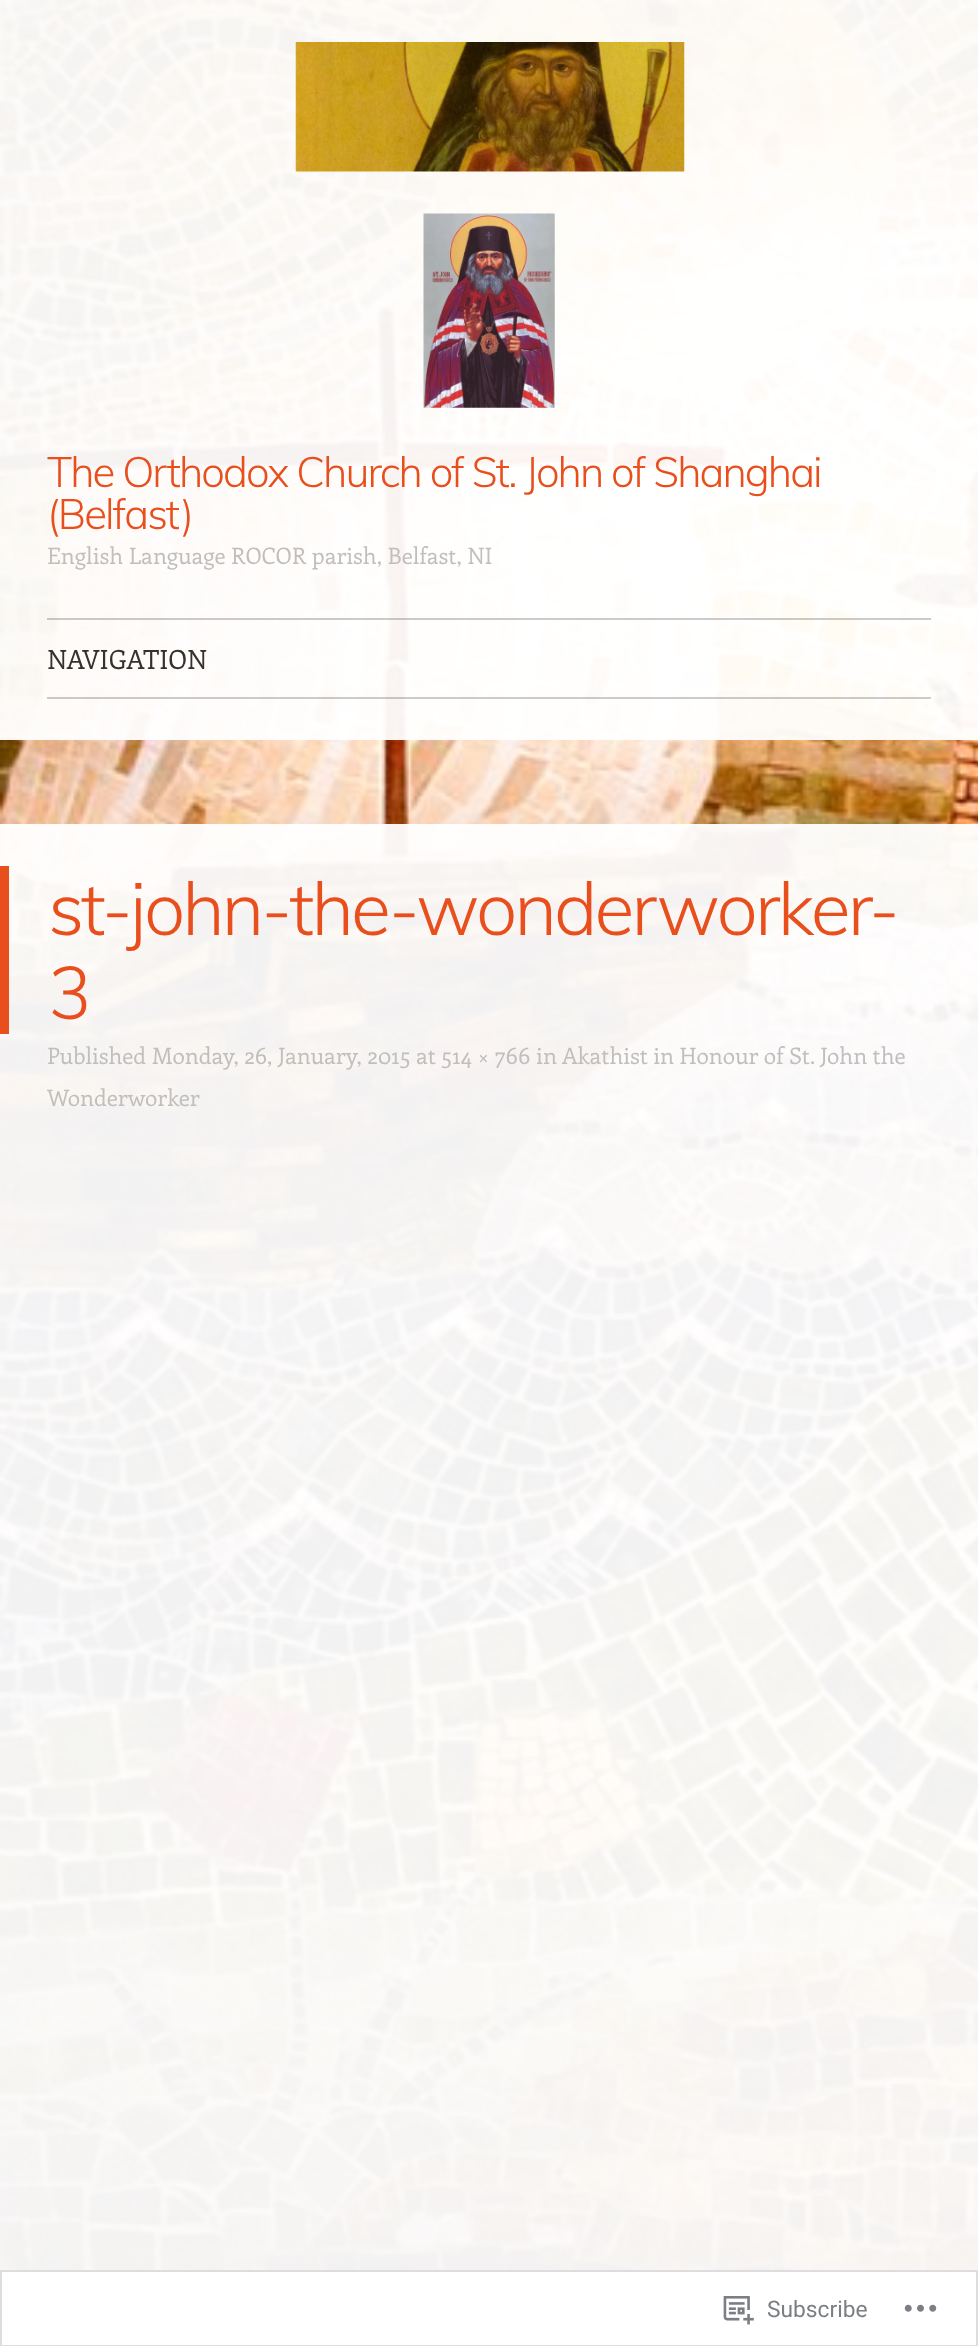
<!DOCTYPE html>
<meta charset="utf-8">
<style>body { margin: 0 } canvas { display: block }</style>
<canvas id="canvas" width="978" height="2346"></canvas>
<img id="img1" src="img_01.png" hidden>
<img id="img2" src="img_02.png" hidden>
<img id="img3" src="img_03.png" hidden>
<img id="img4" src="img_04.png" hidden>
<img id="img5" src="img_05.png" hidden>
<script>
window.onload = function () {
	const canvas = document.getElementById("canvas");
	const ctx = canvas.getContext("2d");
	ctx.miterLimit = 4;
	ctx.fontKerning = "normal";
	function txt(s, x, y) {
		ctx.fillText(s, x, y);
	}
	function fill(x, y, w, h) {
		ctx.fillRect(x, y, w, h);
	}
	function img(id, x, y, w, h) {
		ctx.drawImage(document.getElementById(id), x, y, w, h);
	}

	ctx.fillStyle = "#FFFFFF";
	fill(0, 0, 978, 2346);
	img("img1", 0, 0, 978, 2345);
	ctx.fillStyle = "rgba(255, 255, 255, 0.95)";
	fill(0, 0, 978, 740);
	img("img2", 295, 42, 390, 130);
	img("img3", 423, 213, 132, 195);
	ctx.fillStyle = "rgba(0, 0, 0, 0.2)";
	fill(47, 618, 884, 2);
	fill(47, 697, 884, 2);
	ctx.fillStyle = "rgba(255, 255, 255, 0.95)";
	fill(0, 824, 978, 1521);
	ctx.fillStyle = "#E94F1D";
	fill(0, 866, 9, 168);
	ctx.fillStyle = "rgba(255, 255, 255, 0.98)";
	ctx.beginPath();
	ctx.rect(1, 2271, 976, 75);
	ctx.fill();
	ctx.strokeStyle = "#DDDDDF";
	ctx.lineWidth = 2;
	ctx.stroke();
	img("img4", 723, 2296, 31, 29);
	img("img5", 904, 2304, 33, 8);
	ctx.letterSpacing = "-1.9px";
	ctx.font = "300 42px Muli";
	ctx.fillStyle = "#E94F1D";
	txt("The Orthodox Church of St. John of Shanghai", 47, 487);
	txt("(Belfast)", 47, 529);
	ctx.letterSpacing = "0px";
	ctx.font = "22.75px Enriqueta";
	ctx.fillStyle = "#C1BEBC";
	txt("English Language ROCOR parish, Belfast, NI", 47, 564);
	ctx.font = "26.25px Enriqueta";
	ctx.fillStyle = "#36312D";
	txt("NAVIGATION", 47, 669);
	ctx.letterSpacing = "-2.9px";
	ctx.font = "300 73.5px Muli";
	ctx.fillStyle = "#E94F1D";
	txt("st-john-the-wonderworker-", 48, 935);
	txt("3", 48, 1019);
	ctx.letterSpacing = "0px";
	ctx.font = "22.75px Enriqueta";
	ctx.fillStyle = "#C1BEBC";
	txt("Published", 47, 1064);
	txt("Monday, 26, January, 2015", 152, 1064);
	txt("at 514 × 766 in", 416, 1064);
	txt("Akathist in Honour of St. John the", 562, 1064);
	txt("Wonderworker", 47, 1106);
	ctx.font = "22.75px Roboto";
	ctx.fillStyle = "#7B7F84";
	txt("Subscribe", 767, 2317);
};
</script>
